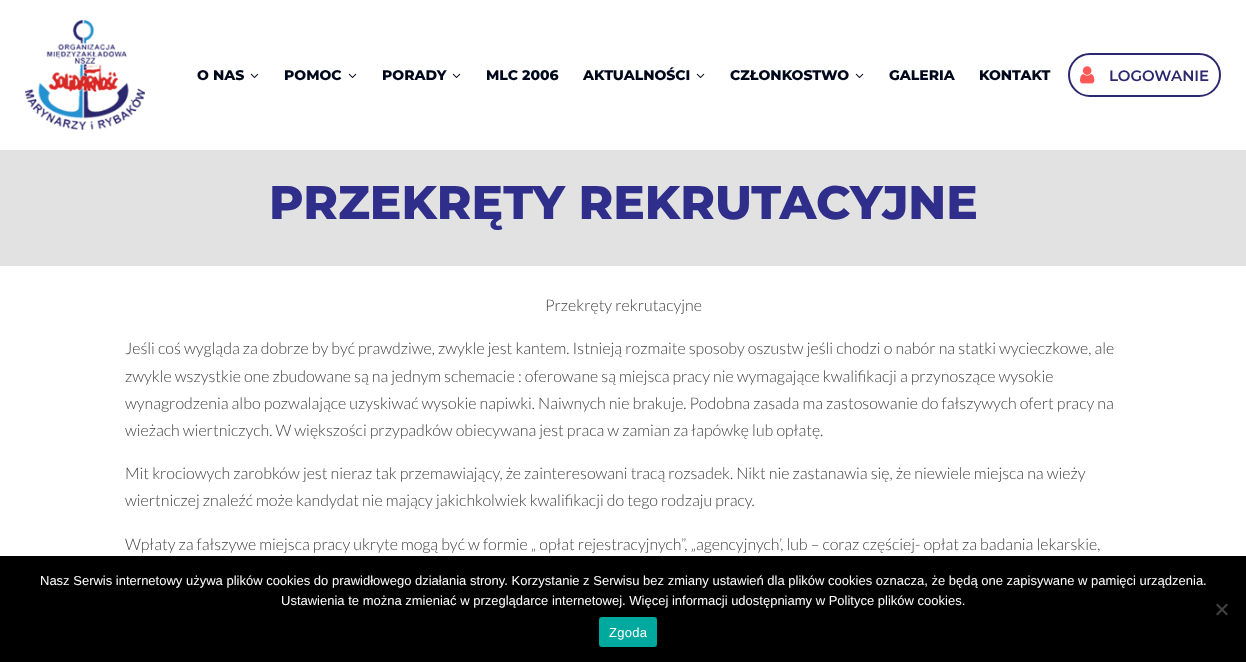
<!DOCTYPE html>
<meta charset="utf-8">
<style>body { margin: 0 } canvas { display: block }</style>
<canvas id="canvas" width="1246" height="662"></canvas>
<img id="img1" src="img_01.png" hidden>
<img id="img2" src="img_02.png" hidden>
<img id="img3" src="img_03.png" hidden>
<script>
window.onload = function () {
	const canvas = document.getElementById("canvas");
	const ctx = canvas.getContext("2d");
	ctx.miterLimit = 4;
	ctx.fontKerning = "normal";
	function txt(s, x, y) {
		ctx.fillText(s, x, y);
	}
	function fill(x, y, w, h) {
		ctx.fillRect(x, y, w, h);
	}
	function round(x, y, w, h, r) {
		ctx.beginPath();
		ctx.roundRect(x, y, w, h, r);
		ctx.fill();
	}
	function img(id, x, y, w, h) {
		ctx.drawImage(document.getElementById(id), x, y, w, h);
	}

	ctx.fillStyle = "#FFFFFF";
	fill(0, 0, 1246, 662);
	img("img1", 25, 20, 120, 110);
	img("img2", 250, 73, 9, 5);
	img("img2", 348, 73, 9, 5);
	img("img2", 452, 73, 9, 5);
	img("img2", 696, 73, 9, 5);
	img("img2", 855, 73, 9, 5);
	ctx.beginPath();
	ctx.roundRect(1069, 54, 151, 42, 21);
	ctx.strokeStyle = "#2C286D";
	ctx.lineWidth = 2;
	ctx.stroke();
	img("img3", 1080, 66, 15, 18);
	ctx.fillStyle = "#E2E2E2";
	fill(0, 150, 1246, 116);
	ctx.fillStyle = "#000000";
	fill(0, 556, 1246, 106);
	ctx.fillStyle = "#404040";
	ctx.beginPath();
	ctx.moveTo(1226.5, 603.5);
	ctx.lineTo(1228, 605);
	ctx.lineTo(1217.5, 615.5);
	ctx.lineTo(1216, 614);
	ctx.closePath();
	ctx.fill();
	ctx.beginPath();
	ctx.moveTo(1216, 605);
	ctx.lineTo(1217.5, 603.5);
	ctx.lineTo(1228, 614);
	ctx.lineTo(1226.5, 615.5);
	ctx.closePath();
	ctx.fill();
	ctx.fillStyle = "#00A99D";
	round(599, 617, 58, 30, 3);
	ctx.font = "800 14px Montserrat";
	ctx.fillStyle = "#00091B";
	txt("O NAS", 197, 80);
	txt("POMOC", 284, 80);
	txt("PORADY", 382, 80);
	txt("MLC 2006", 486, 80);
	txt("AKTUALNOŚCI", 583, 80);
	txt("CZŁONKOSTWO", 730, 80);
	txt("GALERIA", 889, 80);
	txt("KONTAKT", 979, 80);
	ctx.font = "600 15px Montserrat";
	ctx.fillStyle = "#2C286D";
	txt("LOGOWANIE", 1109, 81);
	ctx.font = "800 47px Montserrat";
	ctx.fillStyle = "#2F2E8A";
	txt("PRZEKRĘTY REKRUTACYJNE", 269, 219);
	ctx.font = "300 16px Lato";
	ctx.fillStyle = "#424242";
	txt("Przekręty rekrutacyjne", 545, 311);
	txt("Jeśli coś wygląda za dobrze by być prawdziwe, zwykle jest kantem. Istnieją rozmaite sposoby oszustw jeśli chodzi o nabór na statki wycieczkowe, ale", 125, 354);
	txt("zwykle wszystkie one zbudowane są na jednym schemacie : oferowane są miejsca pracy nie wymagające kwalifikacji a przynoszące wysokie", 125, 382);
	txt("wynagrodzenia albo pozwalające uzyskiwać wysokie napiwki. Naiwnych nie brakuje. Podobna zasada ma zastosowanie do fałszywych ofert pracy na", 125, 409);
	txt("wieżach wiertniczych. W większości przypadków obiecywana jest praca w zamian za łapówkę lub opłatę.", 125, 436);
	txt("Mit krociowych zarobków jest nieraz tak przemawiający, że zainteresowani tracą rozsadek. Nikt nie zastanawia się, że niewiele miejsca na wieży", 125, 479);
	txt("wiertniczej znaleźć może kandydat nie mający jakichkolwiek kwalifikacji do tego rodzaju pracy.", 125, 506);
	txt("Wpłaty za fałszywe miejsca pracy ukryte mogą być w formie „ opłat rejestracyjnych”, „agencyjnych’, lub – coraz częściej- opłat za badania lekarskie,", 125, 550);
	ctx.font = "13px Liberation Sans";
	ctx.fillStyle = "#FFFFFF";
	txt("Nasz Serwis internetowy używa plików cookies do prawidłowego działania strony. Korzystanie z Serwisu bez zmiany ustawień dla plików cookies oznacza, że będą one zapisywane w pamięci urządzenia.", 40, 585);
	txt("Ustawienia te można zmieniać w przeglądarce internetowej. Więcej informacji udostępniamy w Polityce plików cookies.", 281, 605);
	ctx.letterSpacing = "0.25px";
	txt("Zgoda", 609, 637);
};
</script>
